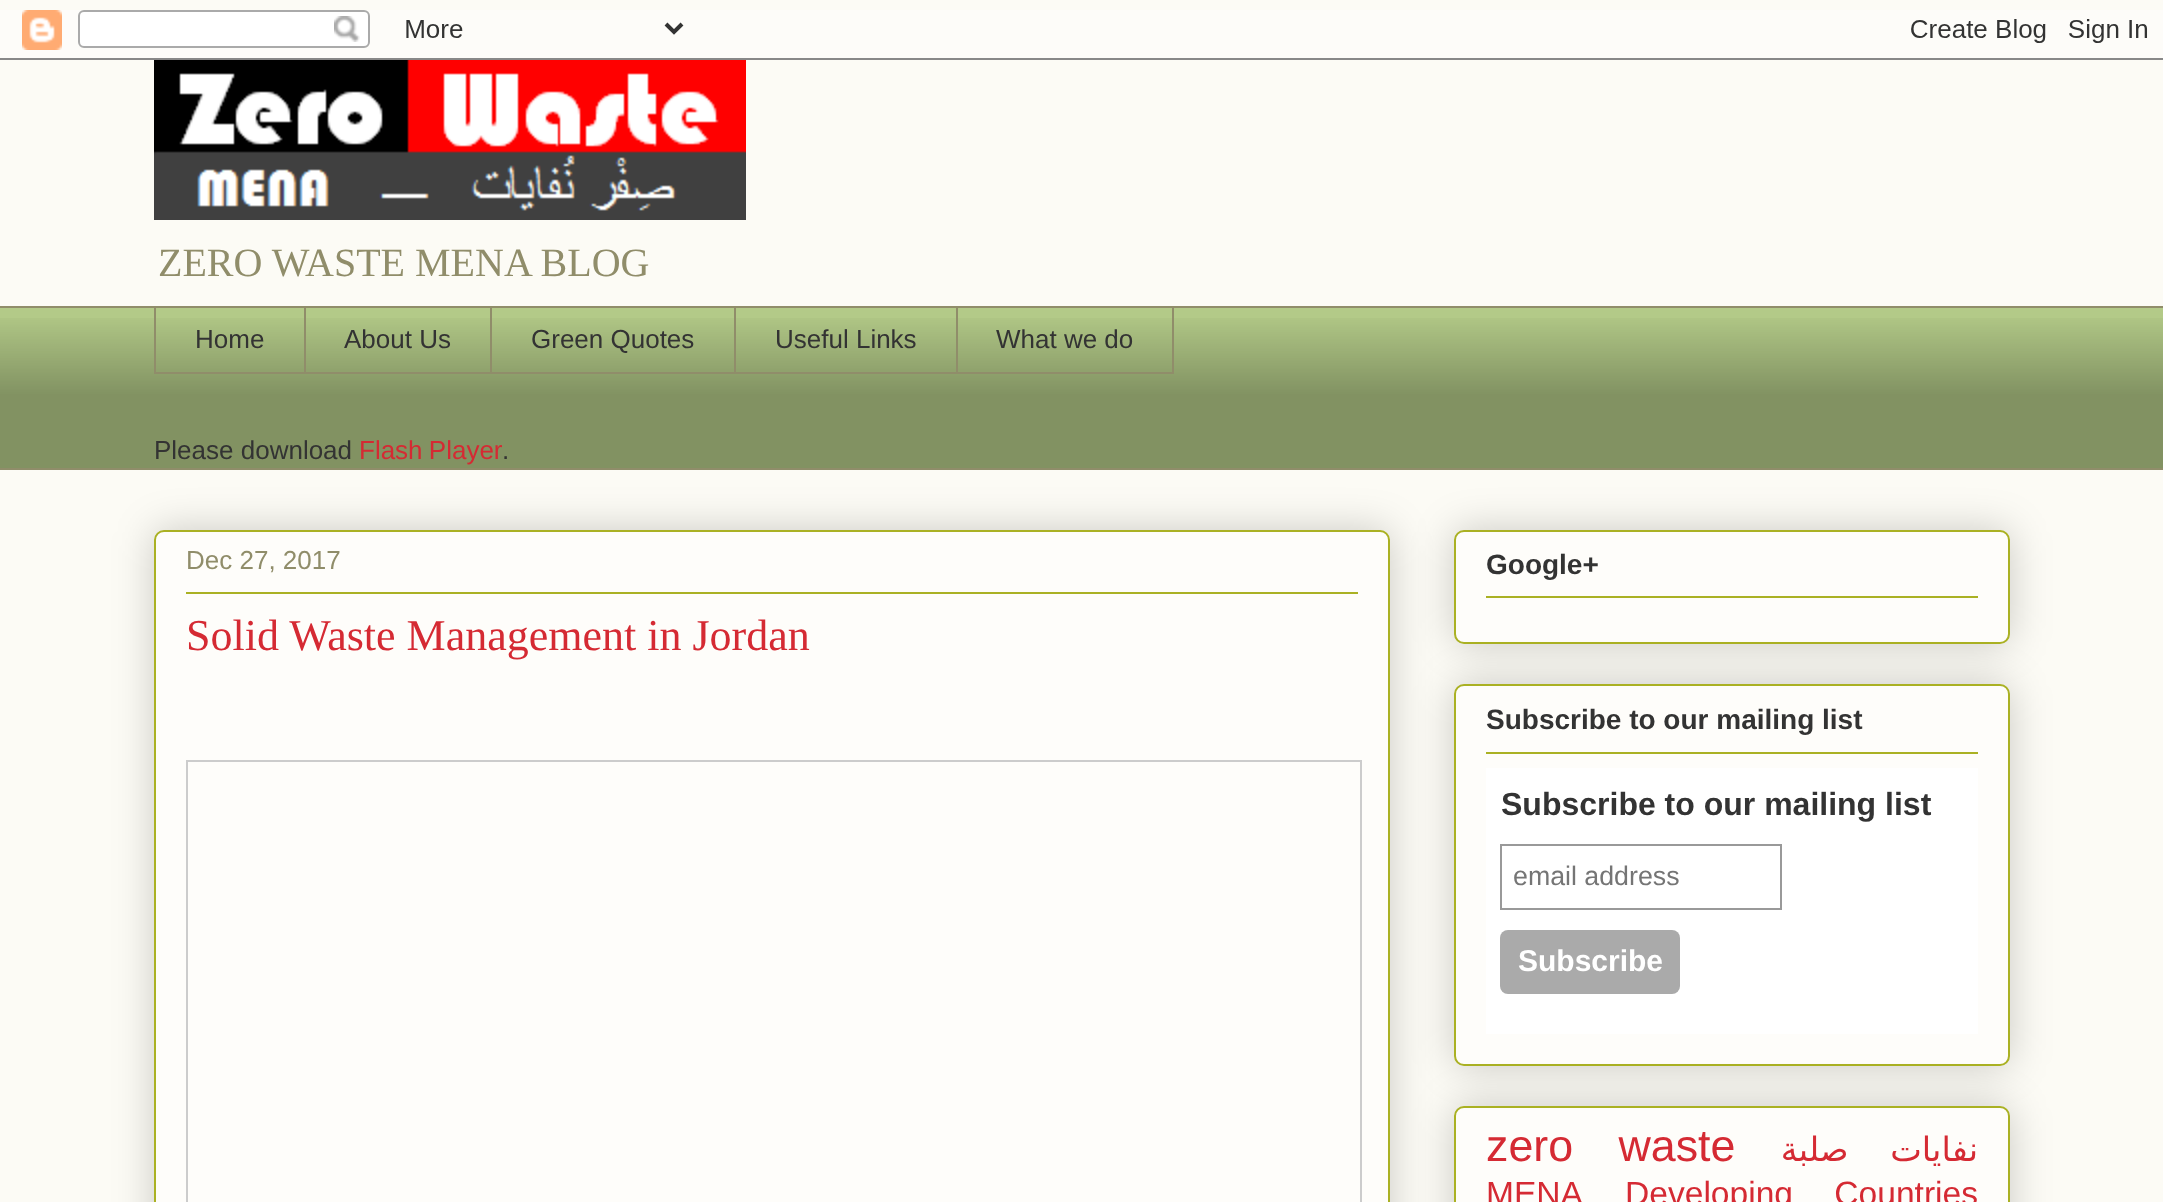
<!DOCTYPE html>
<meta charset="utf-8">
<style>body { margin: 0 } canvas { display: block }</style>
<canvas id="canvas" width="2163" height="1202"></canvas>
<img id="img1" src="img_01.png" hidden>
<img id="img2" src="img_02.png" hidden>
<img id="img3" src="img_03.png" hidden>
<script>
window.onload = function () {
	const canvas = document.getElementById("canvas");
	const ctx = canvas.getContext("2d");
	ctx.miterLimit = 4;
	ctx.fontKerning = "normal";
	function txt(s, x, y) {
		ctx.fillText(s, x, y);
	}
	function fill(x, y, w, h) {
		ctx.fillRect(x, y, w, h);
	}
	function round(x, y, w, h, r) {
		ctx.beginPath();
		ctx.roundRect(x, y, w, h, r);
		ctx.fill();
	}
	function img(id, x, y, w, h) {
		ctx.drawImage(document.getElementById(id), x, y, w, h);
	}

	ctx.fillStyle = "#FCFBF5";
	fill(0, 0, 2163, 1202);
	img("img1", 0, 10, 2163, 50);
	img("img2", 154, 60, 592, 160);
	ctx.fillStyle = "#B3CA88";
	fill(0, 308, 2163, 160);
	img("img3", 0, 318, 2163, 150);
	ctx.fillStyle = "#908D6A";
	fill(0, 306, 2163, 2);
	fill(154, 372, 802, 2);
	fill(154, 306, 2, 68);
	fill(304, 306, 2, 68);
	fill(490, 306, 2, 68);
	fill(734, 306, 2, 68);
	ctx.strokeStyle = "#908D6A";
	ctx.lineWidth = 2;
	ctx.strokeRect(957, 307, 216, 66);
	fill(0, 468, 2163, 2);
	ctx.fillStyle = "rgba(0, 0, 0, 0.2)";
	ctx.filter = "blur(20px)";
	ctx.beginPath();
	ctx.roundRect(154, 530, 1236, 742, 10);
	ctx.fill();
	ctx.filter = "none";
	ctx.fillStyle = "#FEFDFA";
	ctx.beginPath();
	ctx.roundRect(155, 531, 1234, 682, 9);
	ctx.fill();
	ctx.strokeStyle = "#AAB123";
	ctx.stroke();
	ctx.fillStyle = "#AAB123";
	fill(186, 592, 1172, 2);
	ctx.strokeStyle = "#CCCCCC";
	ctx.strokeRect(187, 761, 1174, 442);
	ctx.fillStyle = "rgba(0, 0, 0, 0.2)";
	ctx.filter = "blur(20px)";
	ctx.beginPath();
	ctx.roundRect(1454, 530, 556, 114, 10);
	ctx.fill();
	ctx.filter = "none";
	ctx.fillStyle = "#FEFDFA";
	ctx.beginPath();
	ctx.roundRect(1455, 531, 554, 112, 9);
	ctx.fill();
	ctx.strokeStyle = "#AAB123";
	ctx.stroke();
	ctx.fillStyle = "#AAB123";
	fill(1486, 596, 492, 2);
	ctx.fillStyle = "rgba(0, 0, 0, 0.2)";
	ctx.filter = "blur(20px)";
	ctx.beginPath();
	ctx.roundRect(1454, 684, 556, 382, 10);
	ctx.fill();
	ctx.filter = "none";
	ctx.fillStyle = "#FEFDFA";
	ctx.beginPath();
	ctx.roundRect(1455, 685, 554, 380, 9);
	ctx.fill();
	ctx.stroke();
	ctx.fillStyle = "#AAB123";
	fill(1486, 752, 492, 2);
	ctx.fillStyle = "#FFFFFF";
	fill(1486, 768, 492, 266);
	ctx.strokeStyle = "#999999";
	ctx.strokeRect(1501, 845, 280, 64);
	ctx.fillStyle = "#AAAAAA";
	round(1500, 930, 180, 64, 8);
	ctx.fillStyle = "rgba(0, 0, 0, 0.2)";
	ctx.filter = "blur(20px)";
	ctx.beginPath();
	ctx.roundRect(1454, 1106, 556, 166, 10);
	ctx.fill();
	ctx.filter = "none";
	ctx.fillStyle = "#FEFDFA";
	ctx.beginPath();
	ctx.roundRect(1455, 1107, 554, 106, 9);
	ctx.fill();
	ctx.strokeStyle = "#AAB123";
	ctx.stroke();
	ctx.font = "40px Liberation Serif";
	ctx.fillStyle = "#908D6A";
	txt("ZERO WASTE MENA BLOG", 158, 276);
	ctx.font = "26px Liberation Sans";
	ctx.fillStyle = "#333333";
	txt("Home", 195, 348);
	txt("About Us", 344, 348);
	txt("Green Quotes", 531, 348);
	txt("Useful Links", 775, 348);
	txt("What we do", 996, 348);
	txt("Please download", 154, 459);
	ctx.wordSpacing = "-1px";
	ctx.fillStyle = "#D52A33";
	txt("Flash Player", 359, 459);
	ctx.wordSpacing = "0px";
	ctx.fillStyle = "#333333";
	txt(".", 502, 459);
	ctx.fillStyle = "#908D6A";
	txt("Dec 27, 2017", 186, 569);
	ctx.font = "44px Liberation Serif";
	ctx.fillStyle = "#D52A33";
	txt("Solid Waste Management in Jordan", 186, 650);
	ctx.font = "bold 28px Liberation Sans";
	ctx.fillStyle = "#333333";
	txt("Google+", 1486, 574);
	txt("Subscribe to our mailing list", 1486, 729);
	ctx.font = "bold 32px Liberation Sans";
	txt("Subscribe to our mailing list", 1501, 815);
	ctx.font = "26.75px Liberation Sans";
	ctx.fillStyle = "#757575";
	txt("email address", 1513, 885);
	ctx.font = "bold 30px Liberation Sans";
	ctx.fillStyle = "#FFFFFF";
	txt("Subscribe", 1518, 971);
	ctx.wordSpacing = "33px";
	ctx.font = "44.75px Liberation Sans";
	ctx.fillStyle = "#D52A33";
	txt("zero waste", 1486, 1161);
	ctx.wordSpacing = "31px";
	ctx.direction = "rtl";
	ctx.font = "33.6px DejaVu Sans";
	txt("نفايات صلبة", 1978, 1161);
	ctx.wordSpacing = "0px";
	ctx.direction = "ltr";
	ctx.font = "33.6px Liberation Sans";
	txt("MENA", 1486, 1205);
	ctx.wordSpacing = "32px";
	txt("Developing Countries", 1625, 1205);
};
</script>
